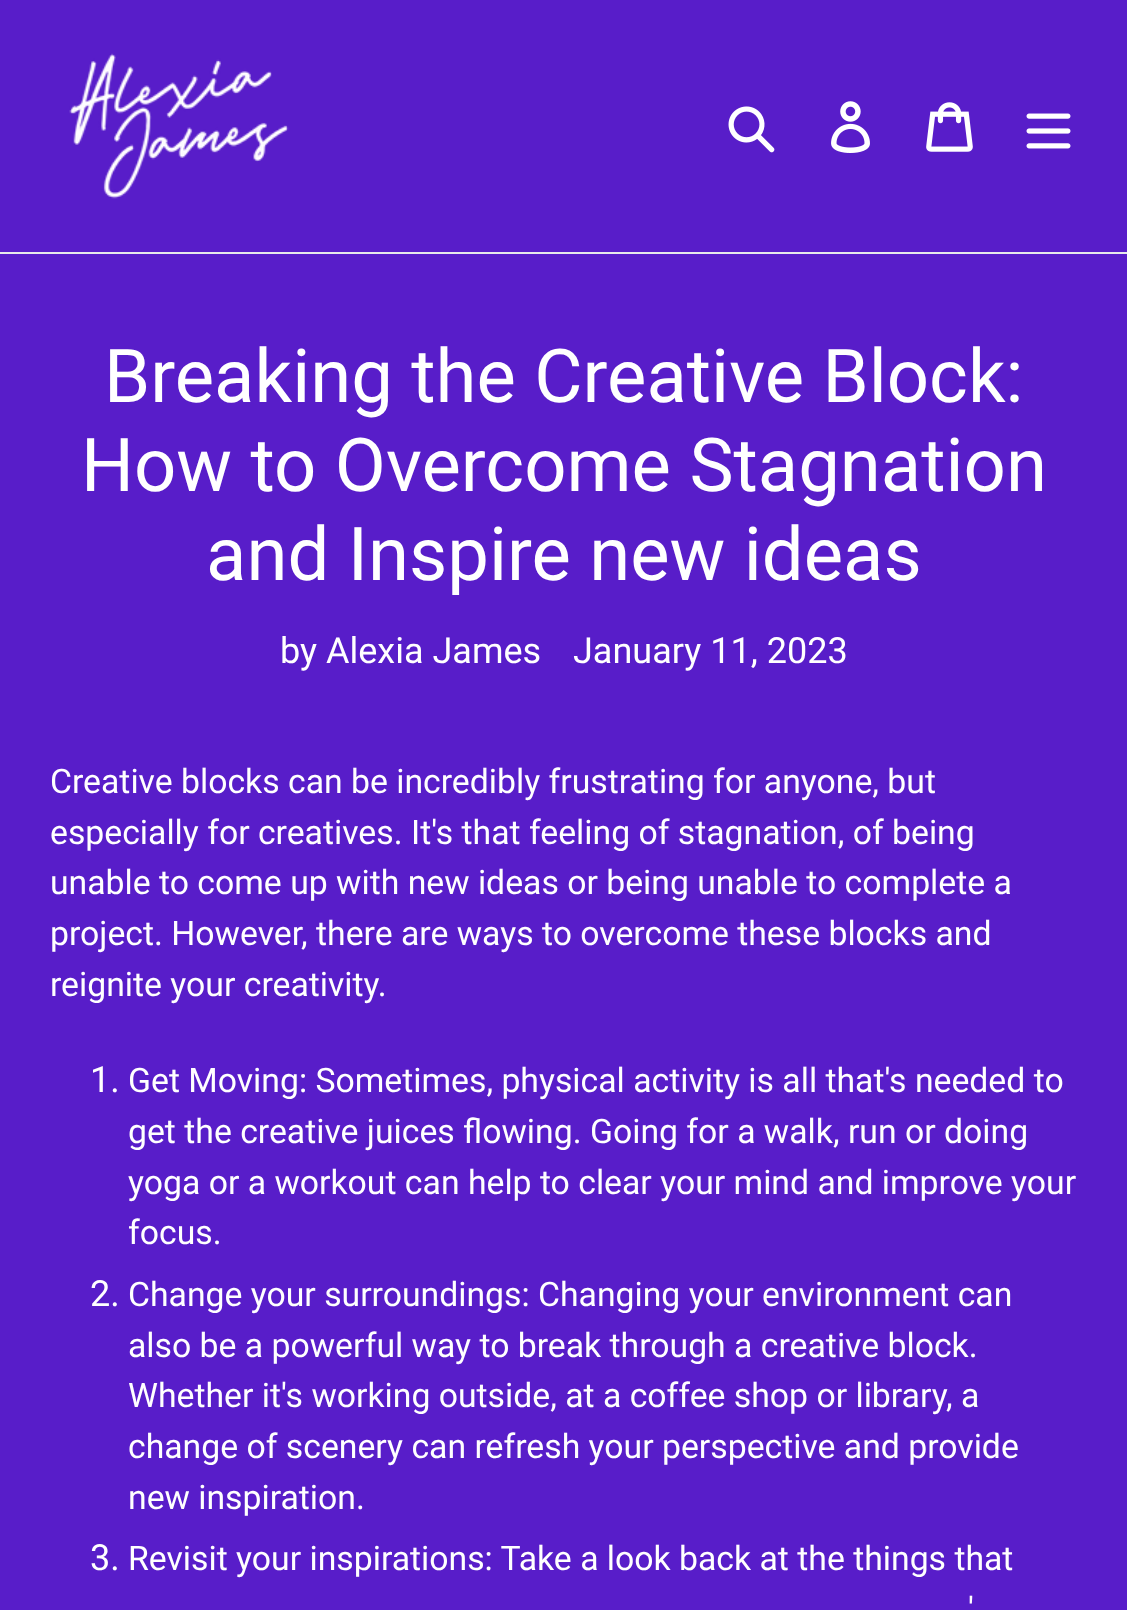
<!DOCTYPE html>
<meta charset="utf-8">
<style>body { margin: 0 } canvas { display: block }</style>
<canvas id="canvas" width="1127" height="1610"></canvas>
<img id="img1" src="img_01.png" hidden>
<img id="img2" src="img_02.png" hidden>
<img id="img3" src="img_03.png" hidden>
<img id="img4" src="img_04.png" hidden>
<img id="img5" src="img_05.png" hidden>
<script>
window.onload = function () {
	const canvas = document.getElementById("canvas");
	const ctx = canvas.getContext("2d");
	ctx.miterLimit = 4;
	ctx.fontKerning = "normal";
	function txt(s, x, y) {
		ctx.fillText(s, x, y);
	}
	function fill(x, y, w, h) {
		ctx.fillRect(x, y, w, h);
	}
	function img(id, x, y, w, h) {
		ctx.drawImage(document.getElementById(id), x, y, w, h);
	}

	ctx.fillStyle = "#581DC9";
	fill(0, 0, 1127, 1610);
	ctx.fillStyle = "#E8E9EB";
	fill(0, 252, 1127, 2);
	img("img1", 69, 53, 220, 146);
	img("img2", 728, 106, 47, 47);
	img("img3", 831, 101, 39, 52);
	img("img4", 926, 102, 47, 50);
	img("img5", 1026, 113, 45, 36);
	ctx.font = "74.25px Roboto";
	ctx.fillStyle = "#FFFFFF";
	txt("Breaking the Creative Block:", 104, 402);
	txt("How to Overcome Stagnation", 81, 491);
	txt("and Inspire new ideas", 206, 580);
	ctx.font = "36px Roboto";
	txt("by Alexia James", 280, 663);
	txt("January 11, 2023", 573, 663);
	ctx.font = "33.75px Roboto";
	txt("Creative blocks can be incredibly frustrating for anyone, but", 50, 793);
	txt("especially for creatives. It's that feeling of stagnation, of being", 50, 844);
	txt("unable to come up with new ideas or being unable to complete a", 50, 894);
	txt("project. However, there are ways to overcome these blocks and", 50, 945);
	txt("reignite your creativity.", 50, 996);
	ctx.font = "36px Roboto";
	txt("1.", 90, 1092);
	ctx.font = "33.75px Roboto";
	txt("Get Moving: Sometimes, physical activity is all that's needed to", 128, 1092);
	txt("get the creative juices flowing. Going for a walk, run or doing", 128, 1143);
	txt("yoga or a workout can help to clear your mind and improve your", 128, 1194);
	txt("focus.", 128, 1244);
	ctx.font = "36px Roboto";
	txt("2.", 90, 1306);
	ctx.font = "33.75px Roboto";
	txt("Change your surroundings: Changing your environment can", 128, 1306);
	txt("also be a powerful way to break through a creative block.", 128, 1357);
	txt("Whether it's working outside, at a coffee shop or library, a", 128, 1407);
	txt("change of scenery can refresh your perspective and provide", 128, 1458);
	txt("new inspiration.", 128, 1509);
	ctx.font = "36px Roboto";
	txt("3.", 90, 1570);
	ctx.font = "33.75px Roboto";
	txt("Revisit your inspirations: Take a look back at the things that", 128, 1570);
	txt("'", 968, 1621);
};
</script>
